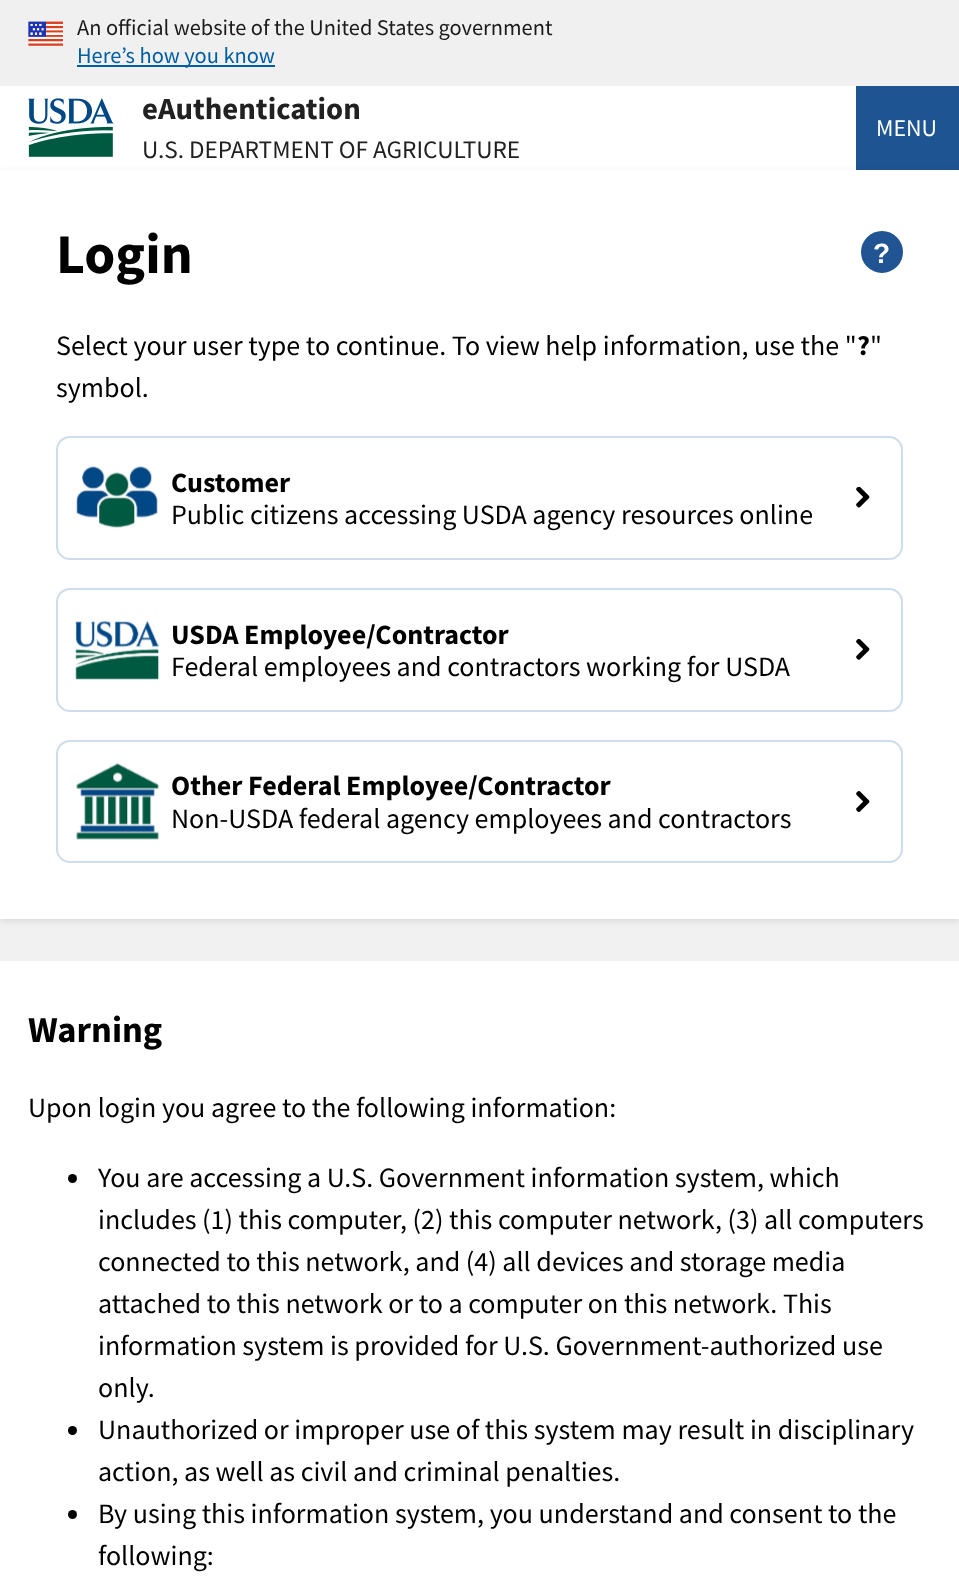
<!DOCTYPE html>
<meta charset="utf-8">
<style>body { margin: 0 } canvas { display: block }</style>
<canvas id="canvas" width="959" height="1576"></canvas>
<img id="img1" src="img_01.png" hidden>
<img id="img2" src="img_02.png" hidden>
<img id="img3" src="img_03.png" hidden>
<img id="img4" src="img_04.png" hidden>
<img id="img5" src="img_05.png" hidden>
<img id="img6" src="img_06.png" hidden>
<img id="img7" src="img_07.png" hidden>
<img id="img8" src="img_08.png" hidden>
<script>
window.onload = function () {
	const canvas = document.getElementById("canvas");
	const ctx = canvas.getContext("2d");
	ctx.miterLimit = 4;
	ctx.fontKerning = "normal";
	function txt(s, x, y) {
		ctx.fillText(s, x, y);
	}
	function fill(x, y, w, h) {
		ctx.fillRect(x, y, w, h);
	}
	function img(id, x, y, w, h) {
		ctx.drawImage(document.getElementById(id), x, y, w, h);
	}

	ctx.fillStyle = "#FFFFFF";
	fill(0, 0, 959, 1576);
	ctx.fillStyle = "#F0F0F0";
	fill(0, 0, 959, 86);
	img("img1", 28, 21, 35, 25);
	ctx.fillStyle = "#005EA2";
	fill(77, 65, 198, 2);
	img("img2", 28, 98, 86, 59);
	ctx.fillStyle = "#1F5493";
	fill(856, 86, 103, 84);
	ctx.fillStyle = "#F1F1F1";
	fill(0, 919, 959, 42);
	ctx.fillStyle = "rgba(0, 0, 0, 0.1)";
	ctx.filter = "blur(3.5px)";
	ctx.beginPath();
	ctx.rect(0, 172, 959, 749);
	ctx.fill();
	ctx.filter = "none";
	ctx.fillStyle = "#FFFFFF";
	fill(0, 170, 959, 749);
	ctx.fillStyle = "#205493";
	ctx.beginPath();
	ctx.arc(882, 252, 19, 0, Math.PI * 2);
	ctx.fill();
	ctx.strokeStyle = "#205493";
	ctx.lineWidth = 4;
	ctx.stroke();
	img("img3", 856, 487, 14, 21);
	ctx.beginPath();
	ctx.roundRect(57, 437, 845, 122, 13);
	ctx.strokeStyle = "#CEDCED";
	ctx.lineWidth = 2;
	ctx.stroke();
	img("img4", 76, 466, 82, 62);
	img("img5", 856, 639, 14, 21);
	ctx.beginPath();
	ctx.roundRect(57, 589, 845, 122, 13);
	ctx.stroke();
	img("img6", 75, 620, 85, 60);
	img("img7", 856, 791, 14, 21);
	ctx.beginPath();
	ctx.roundRect(57, 741, 845, 121, 13);
	ctx.stroke();
	img("img8", 76, 762, 84, 78);
	ctx.fillStyle = "#000000";
	ctx.beginPath();
	ctx.arc(72.5, 1178.5, 4.5, 0, Math.PI * 2);
	ctx.fill();
	ctx.beginPath();
	ctx.arc(72.5, 1430.5, 4.5, 0, Math.PI * 2);
	ctx.fill();
	ctx.beginPath();
	ctx.arc(72.5, 1514.5, 4.5, 0, Math.PI * 2);
	ctx.fill();
	ctx.font = "22.4px Source Sans Pro";
	ctx.fillStyle = "#1B1B1B";
	txt("An official website of the United States government", 77, 35);
	ctx.fillStyle = "#005EA2";
	txt("Here’s how you know", 77, 63);
	ctx.font = "bold 30.75px Source Sans Pro";
	ctx.fillStyle = "#212121";
	txt("eAuthentication", 142, 119);
	ctx.font = "25.25px Source Sans Pro";
	txt("U.S. DEPARTMENT OF AGRICULTURE", 142, 158);
	ctx.font = "24px Source Sans Pro";
	ctx.fillStyle = "#FFFFFF";
	txt("MENU", 876, 136);
	ctx.font = "bold 56px Source Sans Pro";
	ctx.fillStyle = "#000000";
	txt("Login", 56, 273);
	ctx.font = "bold 28px Liberation Sans";
	ctx.fillStyle = "#FFFFFF";
	txt("?", 873, 263);
	ctx.font = "28px Source Sans Pro";
	ctx.fillStyle = "#000000";
	txt("Select your user type to continue. To view help information, use the \"", 56, 355);
	ctx.font = "bold 28px Source Sans Pro";
	txt("?", 857, 355);
	ctx.font = "28px Source Sans Pro";
	txt("\"", 870, 355);
	txt("symbol.", 56, 397);
	ctx.font = "bold 28px Source Sans Pro";
	txt("Customer", 171, 492);
	ctx.font = "28px Source Sans Pro";
	txt("Public citizens accessing USDA agency resources online", 171, 524);
	ctx.font = "bold 28px Source Sans Pro";
	txt("USDA Employee/Contractor", 171, 644);
	ctx.font = "28px Source Sans Pro";
	txt("Federal employees and contractors working for USDA", 171, 676);
	ctx.font = "bold 28px Source Sans Pro";
	txt("Other Federal Employee/Contractor", 171, 795);
	ctx.font = "28px Source Sans Pro";
	txt("Non-USDA federal agency employees and contractors", 171, 828);
	ctx.font = "bold 36.5px Source Sans Pro";
	txt("Warning", 28, 1042);
	ctx.font = "28px Source Sans Pro";
	txt("Upon login you agree to the following information:", 28, 1117);
	txt("You are accessing a U.S. Government information system, which", 98, 1187);
	txt("includes (1) this computer, (2) this computer network, (3) all computers", 98, 1229);
	txt("connected to this network, and (4) all devices and storage media", 98, 1271);
	txt("attached to this network or to a computer on this network. This", 98, 1313);
	txt("information system is provided for U.S. Government-authorized use", 98, 1355);
	txt("only.", 98, 1397);
	txt("Unauthorized or improper use of this system may result in disciplinary", 98, 1439);
	txt("action, as well as civil and criminal penalties.", 98, 1481);
	txt("By using this information system, you understand and consent to the", 98, 1523);
	txt("following:", 98, 1565);
};
</script>
